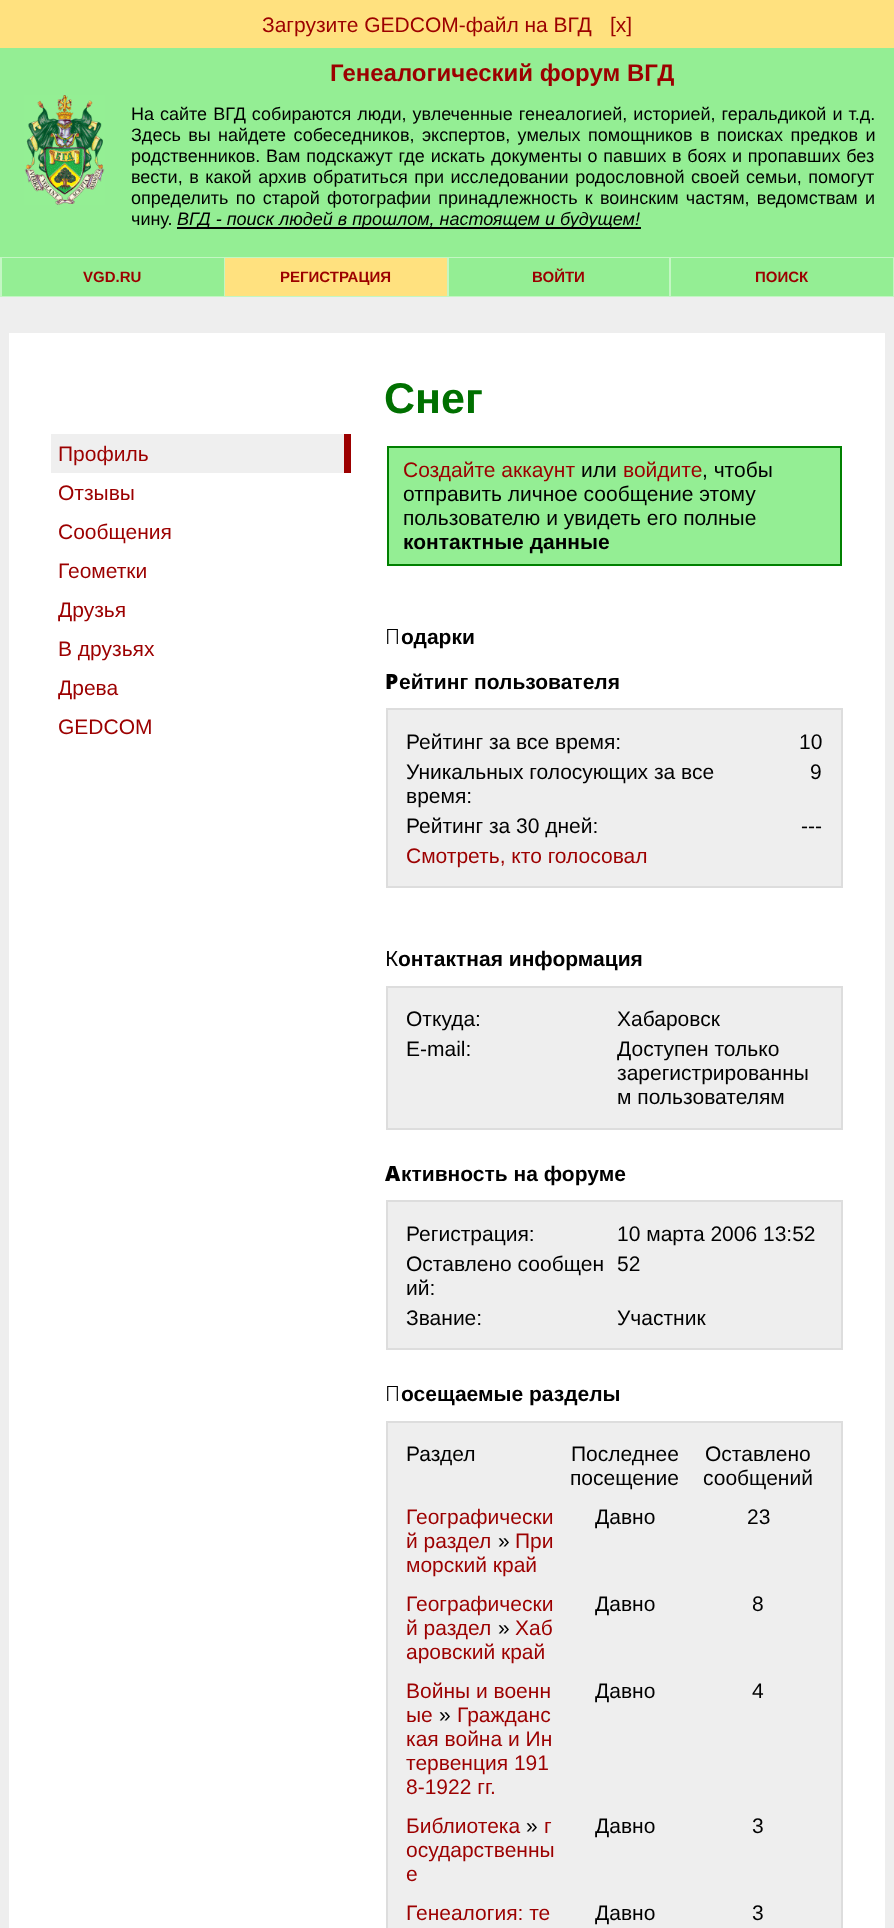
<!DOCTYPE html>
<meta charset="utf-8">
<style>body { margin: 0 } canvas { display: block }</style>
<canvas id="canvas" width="894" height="1928"></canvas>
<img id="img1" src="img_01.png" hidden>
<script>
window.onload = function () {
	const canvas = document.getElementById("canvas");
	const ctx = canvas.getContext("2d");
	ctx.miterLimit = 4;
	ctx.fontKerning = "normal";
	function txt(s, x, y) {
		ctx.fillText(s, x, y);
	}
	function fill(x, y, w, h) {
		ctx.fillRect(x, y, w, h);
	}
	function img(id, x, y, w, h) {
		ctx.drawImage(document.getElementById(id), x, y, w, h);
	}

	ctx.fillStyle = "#EEEEEE";
	fill(0, 0, 894, 1928);
	ctx.fillStyle = "#FFE17F";
	fill(0, 0, 894, 48);
	ctx.fillStyle = "#94EE94";
	fill(0, 48, 894, 209);
	img("img1", 24, 95, 81, 110);
	ctx.fillStyle = "#000000";
	fill(177, 227, 464, 2);
	ctx.fillStyle = "#C3F6C3";
	fill(0, 257, 894, 40);
	ctx.fillStyle = "#94EE94";
	fill(2, 258, 222, 38);
	ctx.fillStyle = "#FFE17F";
	fill(225, 258, 222, 38);
	ctx.fillStyle = "#94EE94";
	fill(449, 258, 220, 38);
	fill(671, 258, 222, 38);
	ctx.fillStyle = "#FFFFFF";
	fill(9, 333, 876, 1595);
	ctx.fillStyle = "#EFEFEF";
	fill(51, 434, 293, 39);
	ctx.fillStyle = "#9C0000";
	fill(344, 434, 7, 39);
	ctx.fillStyle = "#94EE94";
	ctx.beginPath();
	ctx.rect(388, 447, 453, 118);
	ctx.fill();
	ctx.strokeStyle = "#008000";
	ctx.lineWidth = 2;
	ctx.stroke();
	ctx.fillStyle = "#EEEEEE";
	ctx.beginPath();
	ctx.rect(387, 709, 455, 178);
	ctx.fill();
	ctx.strokeStyle = "#DDDDDD";
	ctx.stroke();
	ctx.beginPath();
	ctx.rect(387, 987, 455, 142);
	ctx.fill();
	ctx.stroke();
	ctx.beginPath();
	ctx.rect(387, 1201, 455, 148);
	ctx.fill();
	ctx.stroke();
	ctx.beginPath();
	ctx.rect(387, 1422, 455, 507);
	ctx.fill();
	ctx.stroke();
	ctx.font = "21px Liberation Sans";
	ctx.fillStyle = "#9C0000";
	txt("Загрузите GEDCOM-файл на ВГД", 262, 32);
	txt("[х]", 610, 32);
	ctx.font = "bold 24px Liberation Sans";
	txt("Генеалогический форум ВГД", 330, 81);
	ctx.wordSpacing = "1px";
	ctx.font = "18px Liberation Sans";
	ctx.fillStyle = "#000000";
	txt("На сайте ВГД собираются люди, увлеченные генеалогией, историей, геральдикой и т.д.", 131, 120);
	ctx.wordSpacing = "2.4px";
	txt("Здесь вы найдете собеседников, экспертов, умелых помощников в поисках предков и", 131, 141);
	ctx.wordSpacing = "0.75px";
	txt("родственников. Вам подскажут где искать документы о павших в боях и пропавших без", 131, 162);
	ctx.wordSpacing = "1.5px";
	txt("вести, в какой архив обратиться при исследовании родословной своей семьи, помогут", 131, 183);
	ctx.wordSpacing = "2.25px";
	txt("определить по старой фотографии принадлежность к воинским частям, ведомствам и", 131, 204);
	ctx.wordSpacing = "0px";
	txt("чину.", 131, 225);
	ctx.font = "italic 18px Liberation Sans";
	txt("ВГД - поиск людей в прошлом, настоящем и будущем!", 177, 225);
	ctx.font = "bold 15px Liberation Sans";
	ctx.fillStyle = "#9C0000";
	txt("VGD.RU", 83, 282);
	txt("РЕГИСТРАЦИЯ", 280, 282);
	txt("ВОЙТИ", 532, 282);
	txt("ПОИСК", 755, 282);
	ctx.font = "21px Liberation Sans";
	txt("Профиль", 58, 461);
	txt("Отзывы", 58, 500);
	txt("Сообщения", 58, 539);
	txt("Геометки", 58, 578);
	txt("Друзья", 58, 617);
	txt("В друзьях", 58, 656);
	txt("Древа", 58, 695);
	txt("GEDCOM", 58, 734);
	ctx.font = "bold 43px Liberation Sans";
	ctx.fillStyle = "#007000";
	txt("Снег", 384, 413);
	ctx.font = "21px Liberation Sans";
	ctx.fillStyle = "#9C0000";
	txt("Создайте аккаунт", 403, 477);
	ctx.fillStyle = "#000000";
	txt("или", 581, 477);
	ctx.fillStyle = "#9C0000";
	txt("войдите", 623, 477);
	ctx.fillStyle = "#000000";
	txt(", чтобы", 702, 477);
	txt("отправить личное сообщение этому", 403, 501);
	txt("пользователю и увидеть его полные", 403, 525);
	ctx.font = "bold 21px Liberation Sans";
	txt("контактные данные", 403, 549);
	ctx.font = "300 21px Noto Sans";
	txt("П", 385, 644);
	ctx.font = "bold 21px Liberation Sans";
	txt("одарки", 401, 644);
	ctx.font = "900 21px Noto Sans";
	txt("Р", 385, 689);
	ctx.font = "bold 21px Liberation Sans";
	txt("ейтинг пользователя", 399, 689);
	ctx.font = "21px Liberation Sans";
	txt("Рейтинг за все время:", 406, 749);
	txt("10", 799, 749);
	txt("Уникальных голосующих за все", 406, 779);
	txt("время:", 406, 803);
	txt("9", 810, 779);
	txt("Рейтинг за 30 дней:", 406, 833);
	txt("---", 801, 833);
	ctx.fillStyle = "#9C0000";
	txt("Cмотреть, кто голосовал", 406, 863);
	ctx.font = "21px Noto Sans";
	ctx.fillStyle = "#000000";
	txt("К", 385, 966);
	ctx.font = "bold 21px Liberation Sans";
	txt("онтактная информация", 398, 966);
	ctx.font = "21px Liberation Sans";
	txt("Откуда:", 406, 1026);
	txt("Хабаровск", 617, 1026);
	txt("E-mail:", 406, 1056);
	txt("Доступен только", 617, 1056);
	txt("зарегистрированны", 617, 1080);
	txt("м пользователям", 617, 1104);
	ctx.font = "900 21px Noto Sans";
	txt("А", 385, 1181);
	ctx.font = "bold 21px Liberation Sans";
	txt("ктивность на форуме", 401, 1181);
	ctx.font = "21px Liberation Sans";
	txt("Регистрация:", 406, 1241);
	txt("10 марта 2006 13:52", 617, 1241);
	txt("Оставлено сообщен", 406, 1271);
	txt("ий:", 406, 1295);
	txt("52", 617, 1271);
	txt("Звание:", 406, 1325);
	txt("Участник", 617, 1325);
	ctx.font = "300 21px Noto Sans";
	txt("П", 385, 1401);
	ctx.font = "bold 21px Liberation Sans";
	txt("осещаемые разделы", 401, 1401);
	ctx.font = "21px Liberation Sans";
	txt("Раздел", 406, 1461);
	txt("Последнее", 571, 1461);
	txt("посещение", 570, 1485);
	txt("Оставлено", 705, 1461);
	txt("сообщений", 703, 1485);
	ctx.fillStyle = "#9C0000";
	txt("Географически", 406, 1524);
	txt("й раздел", 406, 1548);
	ctx.fillStyle = "#000000";
	txt("»", 498, 1548);
	ctx.fillStyle = "#9C0000";
	txt("При", 515, 1548);
	txt("морский край", 406, 1572);
	ctx.fillStyle = "#000000";
	txt("Давно", 595, 1524);
	txt("23", 747, 1524);
	ctx.fillStyle = "#9C0000";
	txt("Географически", 406, 1611);
	txt("й раздел", 406, 1635);
	ctx.fillStyle = "#000000";
	txt("»", 498, 1635);
	ctx.fillStyle = "#9C0000";
	txt("Хаб", 515, 1635);
	txt("аровский край", 406, 1659);
	ctx.fillStyle = "#000000";
	txt("Давно", 595, 1611);
	txt("8", 752, 1611);
	ctx.fillStyle = "#9C0000";
	txt("Войны и военн", 406, 1698);
	txt("ые", 406, 1722);
	ctx.fillStyle = "#000000";
	txt("»", 439, 1722);
	ctx.fillStyle = "#9C0000";
	txt("Гражданс", 457, 1722);
	txt("кая война и Ин", 406, 1746);
	txt("тервенция 191", 406, 1770);
	txt("8-1922 гг.", 406, 1794);
	ctx.fillStyle = "#000000";
	txt("Давно", 595, 1698);
	txt("4", 752, 1698);
	ctx.fillStyle = "#9C0000";
	txt("Библиотека", 406, 1833);
	ctx.fillStyle = "#000000";
	txt("»", 526, 1833);
	ctx.fillStyle = "#9C0000";
	txt("г", 544, 1833);
	txt("осударственны", 406, 1857);
	txt("е", 406, 1881);
	ctx.fillStyle = "#000000";
	txt("Давно", 595, 1833);
	txt("3", 752, 1833);
	ctx.fillStyle = "#9C0000";
	txt("Генеалогия: те", 406, 1920);
	ctx.fillStyle = "#000000";
	txt("Давно", 595, 1920);
	txt("3", 752, 1920);
};
</script>
